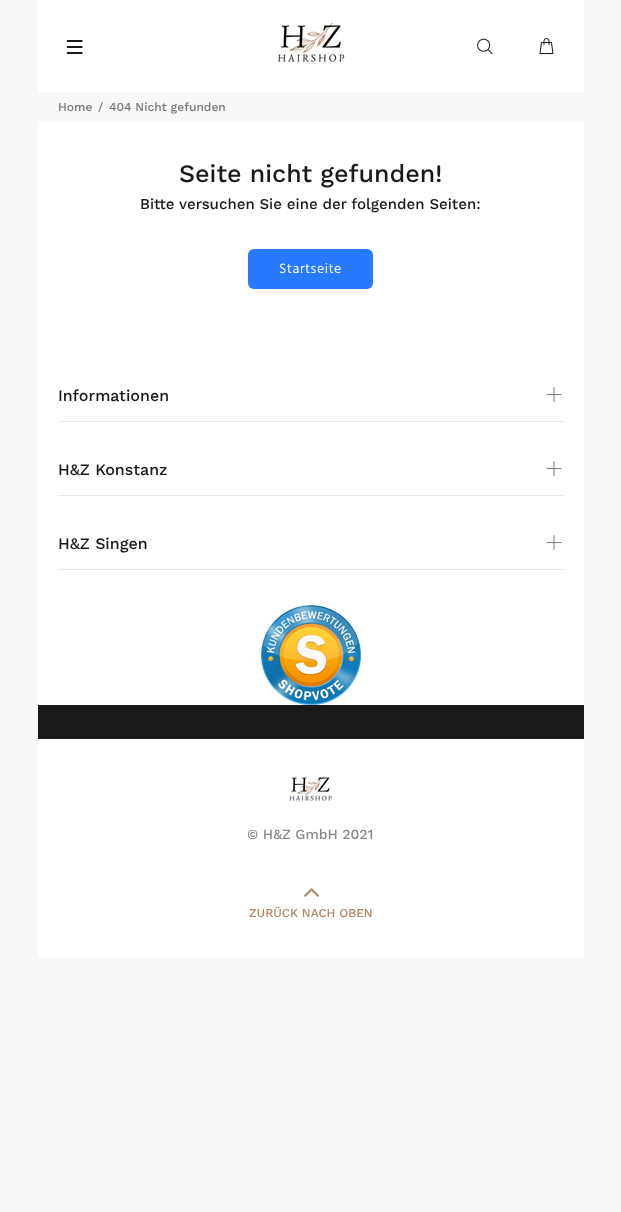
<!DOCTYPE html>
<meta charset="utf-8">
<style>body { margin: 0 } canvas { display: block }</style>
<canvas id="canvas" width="621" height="1212"></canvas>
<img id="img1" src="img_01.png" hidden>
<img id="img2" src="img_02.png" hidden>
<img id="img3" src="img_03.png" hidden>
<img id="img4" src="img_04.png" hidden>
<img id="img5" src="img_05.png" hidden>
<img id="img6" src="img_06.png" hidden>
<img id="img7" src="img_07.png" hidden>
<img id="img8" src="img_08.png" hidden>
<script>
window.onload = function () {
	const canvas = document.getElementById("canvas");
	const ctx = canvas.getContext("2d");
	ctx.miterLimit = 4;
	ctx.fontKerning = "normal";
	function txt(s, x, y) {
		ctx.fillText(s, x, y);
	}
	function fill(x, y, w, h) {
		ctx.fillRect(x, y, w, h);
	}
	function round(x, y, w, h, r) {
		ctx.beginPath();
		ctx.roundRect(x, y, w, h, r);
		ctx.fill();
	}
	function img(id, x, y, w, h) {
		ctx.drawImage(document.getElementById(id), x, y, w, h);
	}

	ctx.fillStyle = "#F7F8FA";
	fill(0, 0, 621, 1212);
	ctx.fillStyle = "#FFFFFF";
	fill(38, 0, 546, 957);
	img("img1", 66, 40, 17, 14);
	img("img2", 277, 22, 71, 41);
	img("img3", 477, 38, 16, 17);
	img("img4", 539, 38, 15, 17);
	ctx.fillStyle = "#F7F8FA";
	fill(38, 92, 546, 30);
	ctx.fillStyle = "#2879FE";
	round(248, 249, 125, 40, 6);
	ctx.fillStyle = "#191919";
	fill(38, 705, 546, 34);
	ctx.fillStyle = "#E9E7E7";
	fill(58, 421, 506, 1);
	img("img5", 546, 387, 16, 15);
	fill(58, 495, 506, 1);
	img("img5", 546, 461, 16, 15);
	fill(58, 569, 506, 1);
	img("img5", 546, 535, 16, 15);
	img("img6", 261, 605, 100, 100);
	img("img7", 289, 775, 45, 28);
	img("img8", 304, 888, 16, 9);
	ctx.font = "500 12px Work Sans";
	ctx.fillStyle = "#777777";
	txt("Home", 58, 111);
	txt("/", 98, 111);
	txt("404 Nicht gefunden", 109, 111);
	ctx.font = "500 25px Work Sans";
	ctx.fillStyle = "#191919";
	txt("Seite nicht gefunden!", 179, 182);
	ctx.font = "500 15px Work Sans";
	txt("Bitte versuchen Sie eine der folgenden Seiten:", 140, 209);
	ctx.letterSpacing = "0.5px";
	ctx.font = "14px Hind";
	ctx.fillStyle = "#FFFFFF";
	txt("Startseite", 279, 273);
	ctx.letterSpacing = "0px";
	ctx.font = "500 16px Work Sans";
	ctx.fillStyle = "#191919";
	txt("Informationen", 58, 401);
	txt("H&Z Konstanz", 58, 475);
	txt("H&Z Singen", 58, 549);
	ctx.font = "500 14px Work Sans";
	ctx.fillStyle = "#888888";
	txt("© H&Z GmbH 2021", 247, 839);
	ctx.font = "500 12px Work Sans";
	ctx.fillStyle = "#B08464";
	txt("ZURÜCK NACH OBEN", 249, 917);
};
</script>
